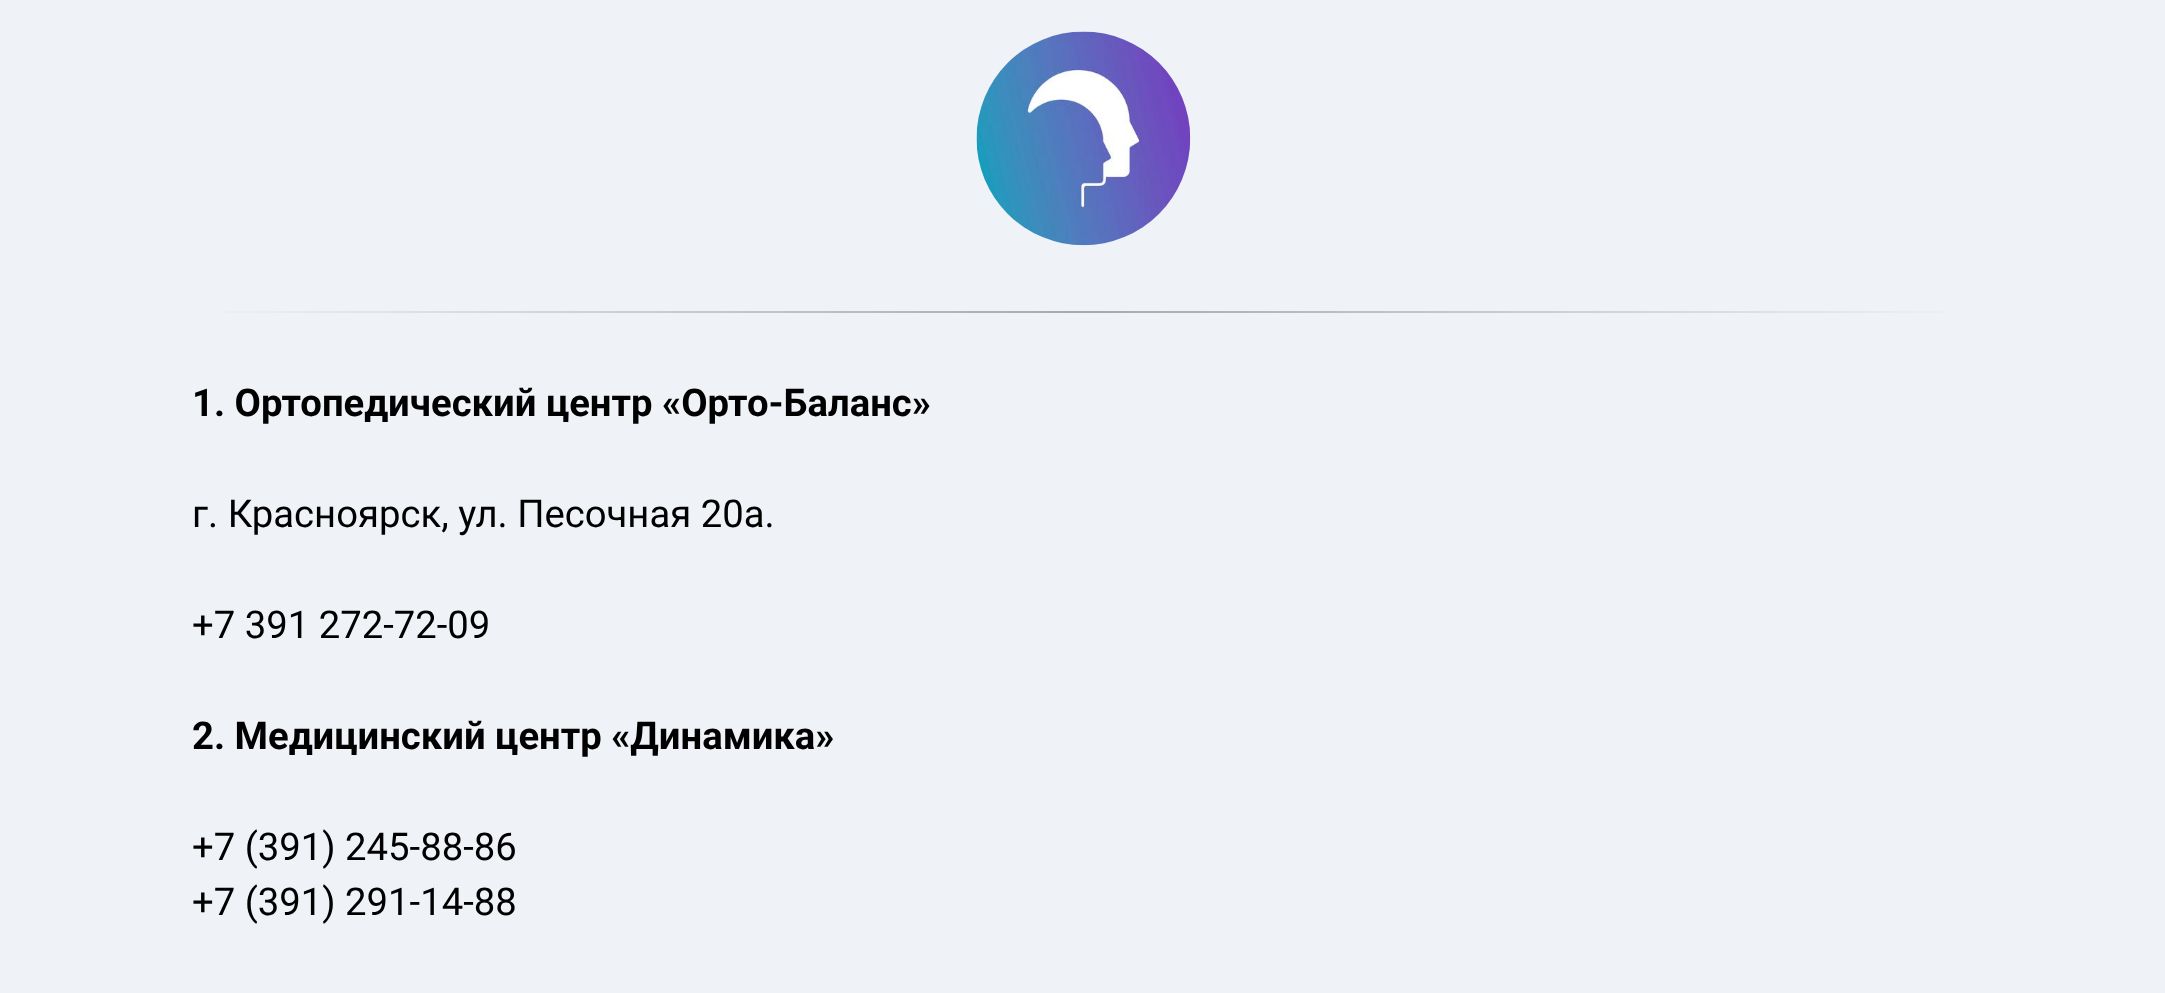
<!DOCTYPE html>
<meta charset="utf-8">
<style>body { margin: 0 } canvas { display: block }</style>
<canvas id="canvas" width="2165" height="993"></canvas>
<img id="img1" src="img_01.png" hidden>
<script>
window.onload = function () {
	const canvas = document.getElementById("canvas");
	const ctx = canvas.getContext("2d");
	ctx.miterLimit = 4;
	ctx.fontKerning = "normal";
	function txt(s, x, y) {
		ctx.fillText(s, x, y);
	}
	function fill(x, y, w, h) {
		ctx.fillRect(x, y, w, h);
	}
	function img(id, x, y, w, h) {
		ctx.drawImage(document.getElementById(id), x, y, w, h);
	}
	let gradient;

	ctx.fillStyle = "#EFF2F7";
	fill(0, 0, 2165, 993);
	img("img1", 976, 31, 215, 215);
	gradient = ctx.createLinearGradient(1085, 312, 194, 312);
	gradient.addColorStop(0, "#A7A9AD");
	gradient.addColorStop(1, "#EFF2F7");
	ctx.fillStyle = gradient;
	fill(224, 311, 861, 2);
	gradient = ctx.createLinearGradient(1085, 312, 1976, 312);
	gradient.addColorStop(0, "#A7A9AD");
	gradient.addColorStop(1, "#EFF2F7");
	ctx.fillStyle = gradient;
	fill(1085, 311, 861, 2);
	ctx.font = "bold 38.25px Roboto";
	ctx.fillStyle = "#000000";
	txt("1. Ортопедический центр «Орто-Баланс»", 192, 416);
	ctx.font = "38.25px Roboto";
	txt("г. Красноярск, ул. Песочная 20а.", 192, 527);
	txt("+7 391 272-72-09", 192, 638);
	ctx.font = "bold 38.25px Roboto";
	txt("‌2. Медицинский центр «Динамика»", 192, 749);
	ctx.font = "38.25px Roboto";
	txt("+7 (391) 245-88-86", 192, 860);
	txt("+7 (391) 291-14-88", 192, 915);
};
</script>
